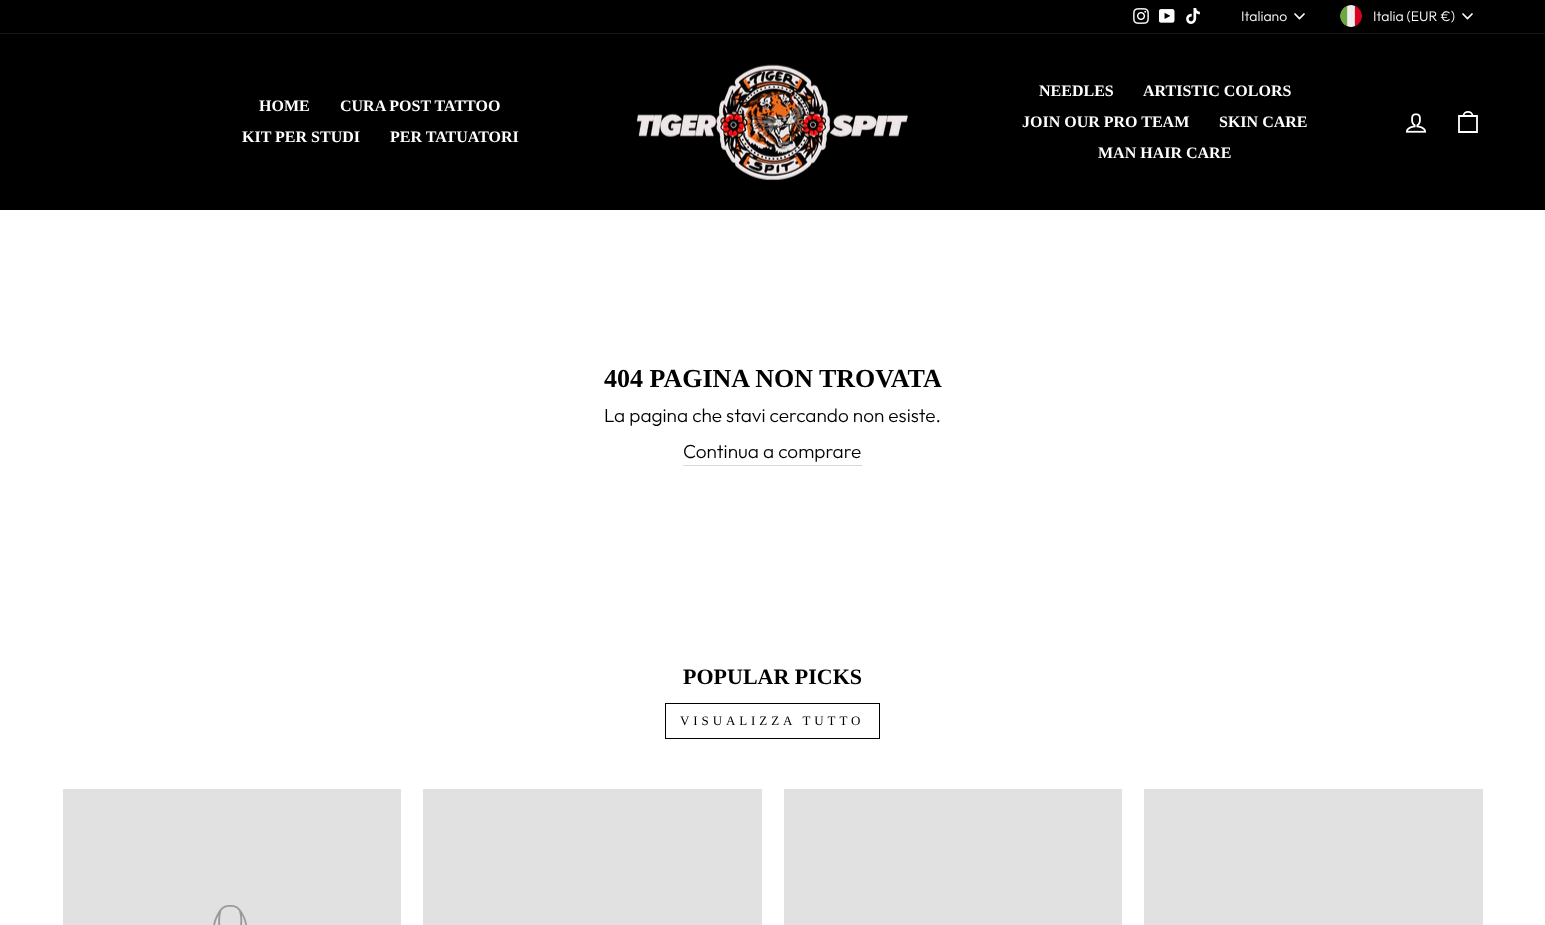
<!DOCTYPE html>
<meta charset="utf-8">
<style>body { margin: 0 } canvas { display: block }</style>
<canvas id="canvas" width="1545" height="925"></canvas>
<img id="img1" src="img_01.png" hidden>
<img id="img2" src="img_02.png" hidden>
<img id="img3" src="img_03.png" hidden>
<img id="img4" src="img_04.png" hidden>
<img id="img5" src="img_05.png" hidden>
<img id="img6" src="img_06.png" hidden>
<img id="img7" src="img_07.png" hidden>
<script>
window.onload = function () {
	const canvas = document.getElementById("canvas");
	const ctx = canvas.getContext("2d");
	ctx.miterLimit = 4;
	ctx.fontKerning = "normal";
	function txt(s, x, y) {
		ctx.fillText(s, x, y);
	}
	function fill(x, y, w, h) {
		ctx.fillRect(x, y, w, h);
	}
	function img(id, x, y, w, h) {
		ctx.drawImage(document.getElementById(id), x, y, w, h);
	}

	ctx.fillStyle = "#FFFFFF";
	fill(0, 0, 1545, 925);
	ctx.fillStyle = "#000000";
	fill(0, 0, 1545, 33);
	img("img1", 1133, 8, 16, 16);
	img("img2", 1159, 9, 16, 14);
	img("img3", 1186, 8, 14, 16);
	ctx.beginPath();
	ctx.moveTo(1294.5, 13.5);
	ctx.lineTo(1299.5, 18.5);
	ctx.lineTo(1304.5, 13.5);
	ctx.strokeStyle = "#FFFFFF";
	ctx.lineWidth = 1.6;
	ctx.stroke();
	img("img4", 1340, 5, 22, 22);
	ctx.beginPath();
	ctx.moveTo(1462.5, 13.5);
	ctx.lineTo(1467.5, 18.5);
	ctx.lineTo(1472.5, 13.5);
	ctx.stroke();
	fill(0, 34, 1545, 176);
	ctx.fillStyle = "#1A1A1A";
	fill(0, 33, 1545, 1);
	img("img5", 636, 64, 272, 117);
	img("img6", 1405, 113, 22, 20);
	ctx.beginPath();
	ctx.moveTo(1459, 116);
	ctx.lineTo(1477, 116);
	ctx.lineTo(1477, 132);
	ctx.lineTo(1459, 132);
	ctx.closePath();
	ctx.moveTo(1463.5, 116);
	ctx.bezierCurveTo(1463.5, 110.5, 1472.5, 110.5, 1472.5, 116);
	ctx.lineWidth = 1.8;
	ctx.stroke();
	ctx.fillStyle = "#D9D9D9";
	fill(683, 465, 179, 1);
	ctx.strokeStyle = "#000000";
	ctx.lineWidth = 1;
	ctx.strokeRect(665.5, 703.5, 214, 35);
	ctx.fillStyle = "#E1E1E1";
	fill(63, 789, 338, 136);
	img("img7", 213, 905, 34, 20);
	fill(423, 789, 339, 136);
	fill(784, 789, 338, 136);
	fill(1144, 789, 339, 136);
	ctx.font = "300 14px Outfit";
	ctx.fillStyle = "#FFFFFF";
	txt("Italiano", 1241, 21);
	txt("Italia (EUR €)", 1373, 21);
	ctx.font = "bold 16px Liberation Serif";
	txt("HOME", 259, 111);
	txt("CURA POST TATTOO", 340, 111);
	txt("KIT PER STUDI", 242, 142);
	txt("PER TATUATORI", 390, 142);
	txt("NEEDLES", 1039, 96);
	txt("ARTISTIC COLORS", 1143, 96);
	txt("JOIN OUR PRO TEAM", 1022, 127);
	txt("SKIN CARE", 1219, 127);
	txt("MAN HAIR CARE", 1098, 158);
	ctx.font = "bold 26px Liberation Serif";
	ctx.fillStyle = "#000000";
	txt("404 PAGINA NON TROVATA", 604, 387);
	ctx.font = "300 19px Outfit";
	txt("La pagina che stavi cercando non esiste.", 604, 422);
	txt("Continua a comprare", 683, 458);
	ctx.font = "bold 22px Liberation Serif";
	txt("POPULAR PICKS", 683, 684);
	ctx.letterSpacing = "3.9px";
	ctx.font = "13px Liberation Serif";
	txt("VISUALIZZA TUTTO", 680, 725);
};
</script>
